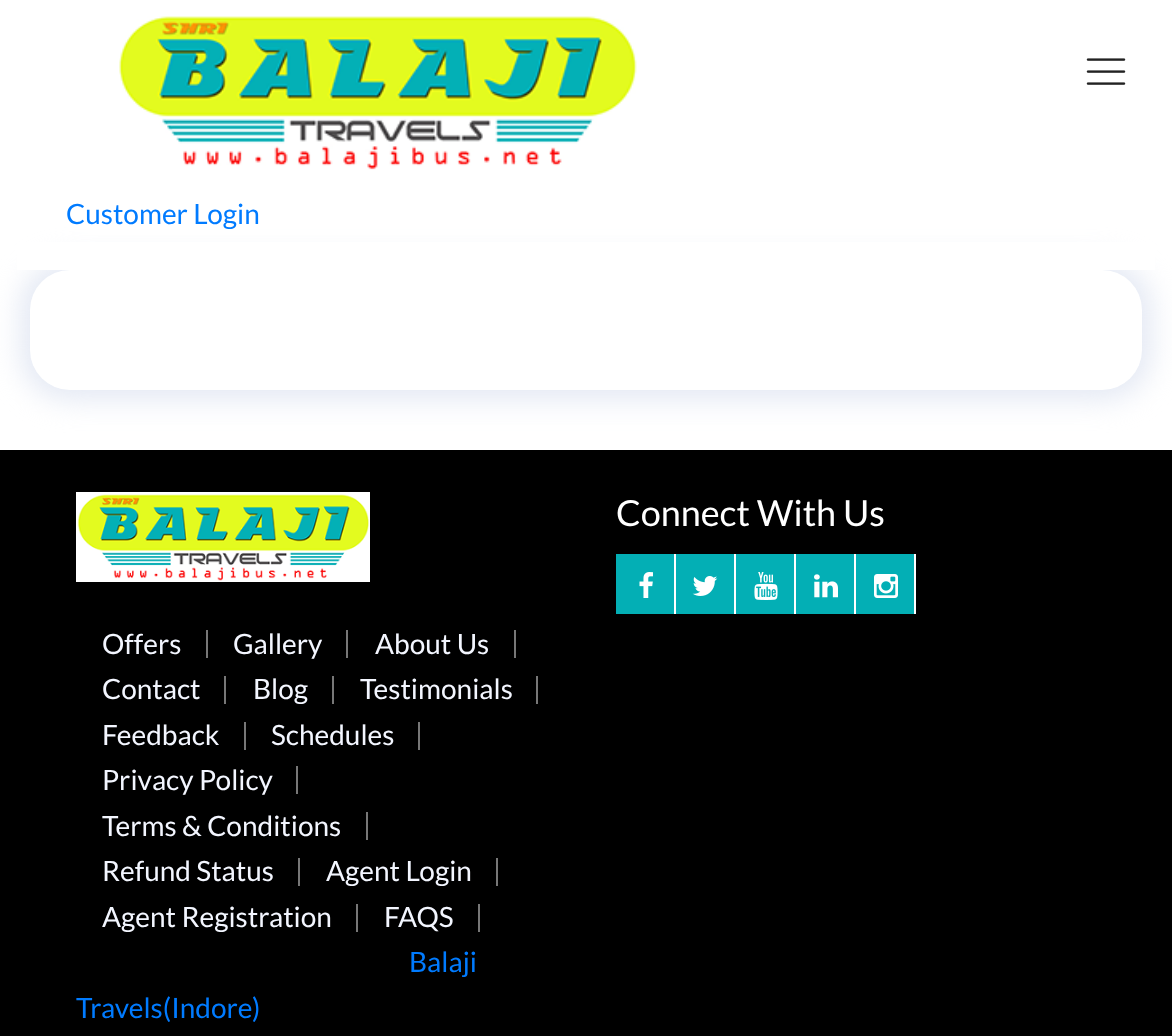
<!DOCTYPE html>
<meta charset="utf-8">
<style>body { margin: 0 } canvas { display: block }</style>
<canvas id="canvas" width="1172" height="1036"></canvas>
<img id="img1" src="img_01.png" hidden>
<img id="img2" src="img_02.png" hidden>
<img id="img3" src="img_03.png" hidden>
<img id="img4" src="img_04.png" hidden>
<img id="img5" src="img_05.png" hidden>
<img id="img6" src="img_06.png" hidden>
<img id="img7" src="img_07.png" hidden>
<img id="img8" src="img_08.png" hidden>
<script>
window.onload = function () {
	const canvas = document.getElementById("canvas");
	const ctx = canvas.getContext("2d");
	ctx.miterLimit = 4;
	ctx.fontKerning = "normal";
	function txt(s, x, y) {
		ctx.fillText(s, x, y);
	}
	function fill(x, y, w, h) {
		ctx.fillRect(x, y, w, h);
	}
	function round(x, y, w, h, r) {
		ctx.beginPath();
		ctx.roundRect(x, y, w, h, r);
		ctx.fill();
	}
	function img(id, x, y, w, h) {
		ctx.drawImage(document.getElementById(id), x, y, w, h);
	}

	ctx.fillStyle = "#FFFFFF";
	fill(0, 0, 1172, 1036);
	img("img1", 1086, 58, 40, 27);
	ctx.fillStyle = "#E4E9F4";
	ctx.filter = "blur(14px)";
	ctx.beginPath();
	ctx.roundRect(20, 260, 1132, 140, 50);
	ctx.fill();
	ctx.filter = "none";
	ctx.fillStyle = "#FFFFFF";
	fill(17, 242, 1138, 28);
	img("img2", 119, 16, 518, 154);
	round(30, 270, 1112, 120, 40);
	ctx.fillStyle = "#000000";
	fill(0, 450, 1172, 586);
	ctx.fillStyle = "#03AFB5";
	fill(616, 554, 58, 60);
	ctx.fillStyle = "#FFFFFF";
	fill(674, 554, 2, 60);
	img("img3", 639, 572, 14, 26);
	ctx.fillStyle = "#03AFB5";
	fill(676, 554, 58, 60);
	ctx.fillStyle = "#FFFFFF";
	fill(734, 554, 2, 60);
	img("img4", 692, 576, 26, 20);
	ctx.fillStyle = "#03AFB5";
	fill(736, 554, 58, 60);
	ctx.fillStyle = "#FFFFFF";
	fill(794, 554, 2, 60);
	img("img5", 754, 572, 24, 28);
	ctx.fillStyle = "#03AFB5";
	fill(796, 554, 58, 60);
	ctx.fillStyle = "#FFFFFF";
	fill(854, 554, 2, 60);
	img("img6", 814, 574, 24, 24);
	ctx.fillStyle = "#03AFB5";
	fill(856, 554, 58, 60);
	ctx.fillStyle = "#FFFFFF";
	fill(914, 554, 2, 60);
	img("img7", 874, 574, 24, 24);
	img("img8", 76, 492, 294, 90);
	ctx.fillStyle = "#777777";
	fill(206, 630, 2, 28);
	fill(346, 630, 2, 28);
	fill(514, 630, 2, 28);
	fill(224, 676, 2, 28);
	fill(332, 676, 2, 28);
	fill(536, 676, 2, 28);
	fill(244, 722, 2, 28);
	fill(418, 722, 2, 28);
	fill(296, 766, 2, 28);
	fill(366, 812, 2, 28);
	fill(298, 858, 2, 28);
	fill(496, 858, 2, 28);
	fill(356, 904, 2, 28);
	fill(478, 904, 2, 28);
	ctx.font = "28px Lato";
	ctx.fillStyle = "#007BFF";
	txt("Customer Login", 66, 224);
	ctx.font = "36px Lato";
	ctx.fillStyle = "#FFFFFF";
	txt("Connect With Us", 616, 526);
	ctx.font = "28px Lato";
	ctx.fillStyle = "#F3F6FF";
	txt("Offers", 102, 654);
	txt("Gallery", 233, 654);
	txt("About Us", 375, 654);
	txt("Contact", 102, 699);
	txt("Blog", 253, 699);
	txt("Testimonials", 360, 699);
	txt("Feedback", 102, 745);
	txt("Schedules", 271, 745);
	txt("Privacy Policy", 102, 790);
	txt("Terms & Conditions", 102, 836);
	txt("Refund Status", 102, 881);
	txt("Agent Login", 326, 881);
	txt("Agent Registration", 102, 927);
	txt("FAQS", 384, 927);
	ctx.fillStyle = "#007BFF";
	txt("Balaji", 409, 972);
	txt("Travels(Indore)", 76, 1018);
};
</script>
